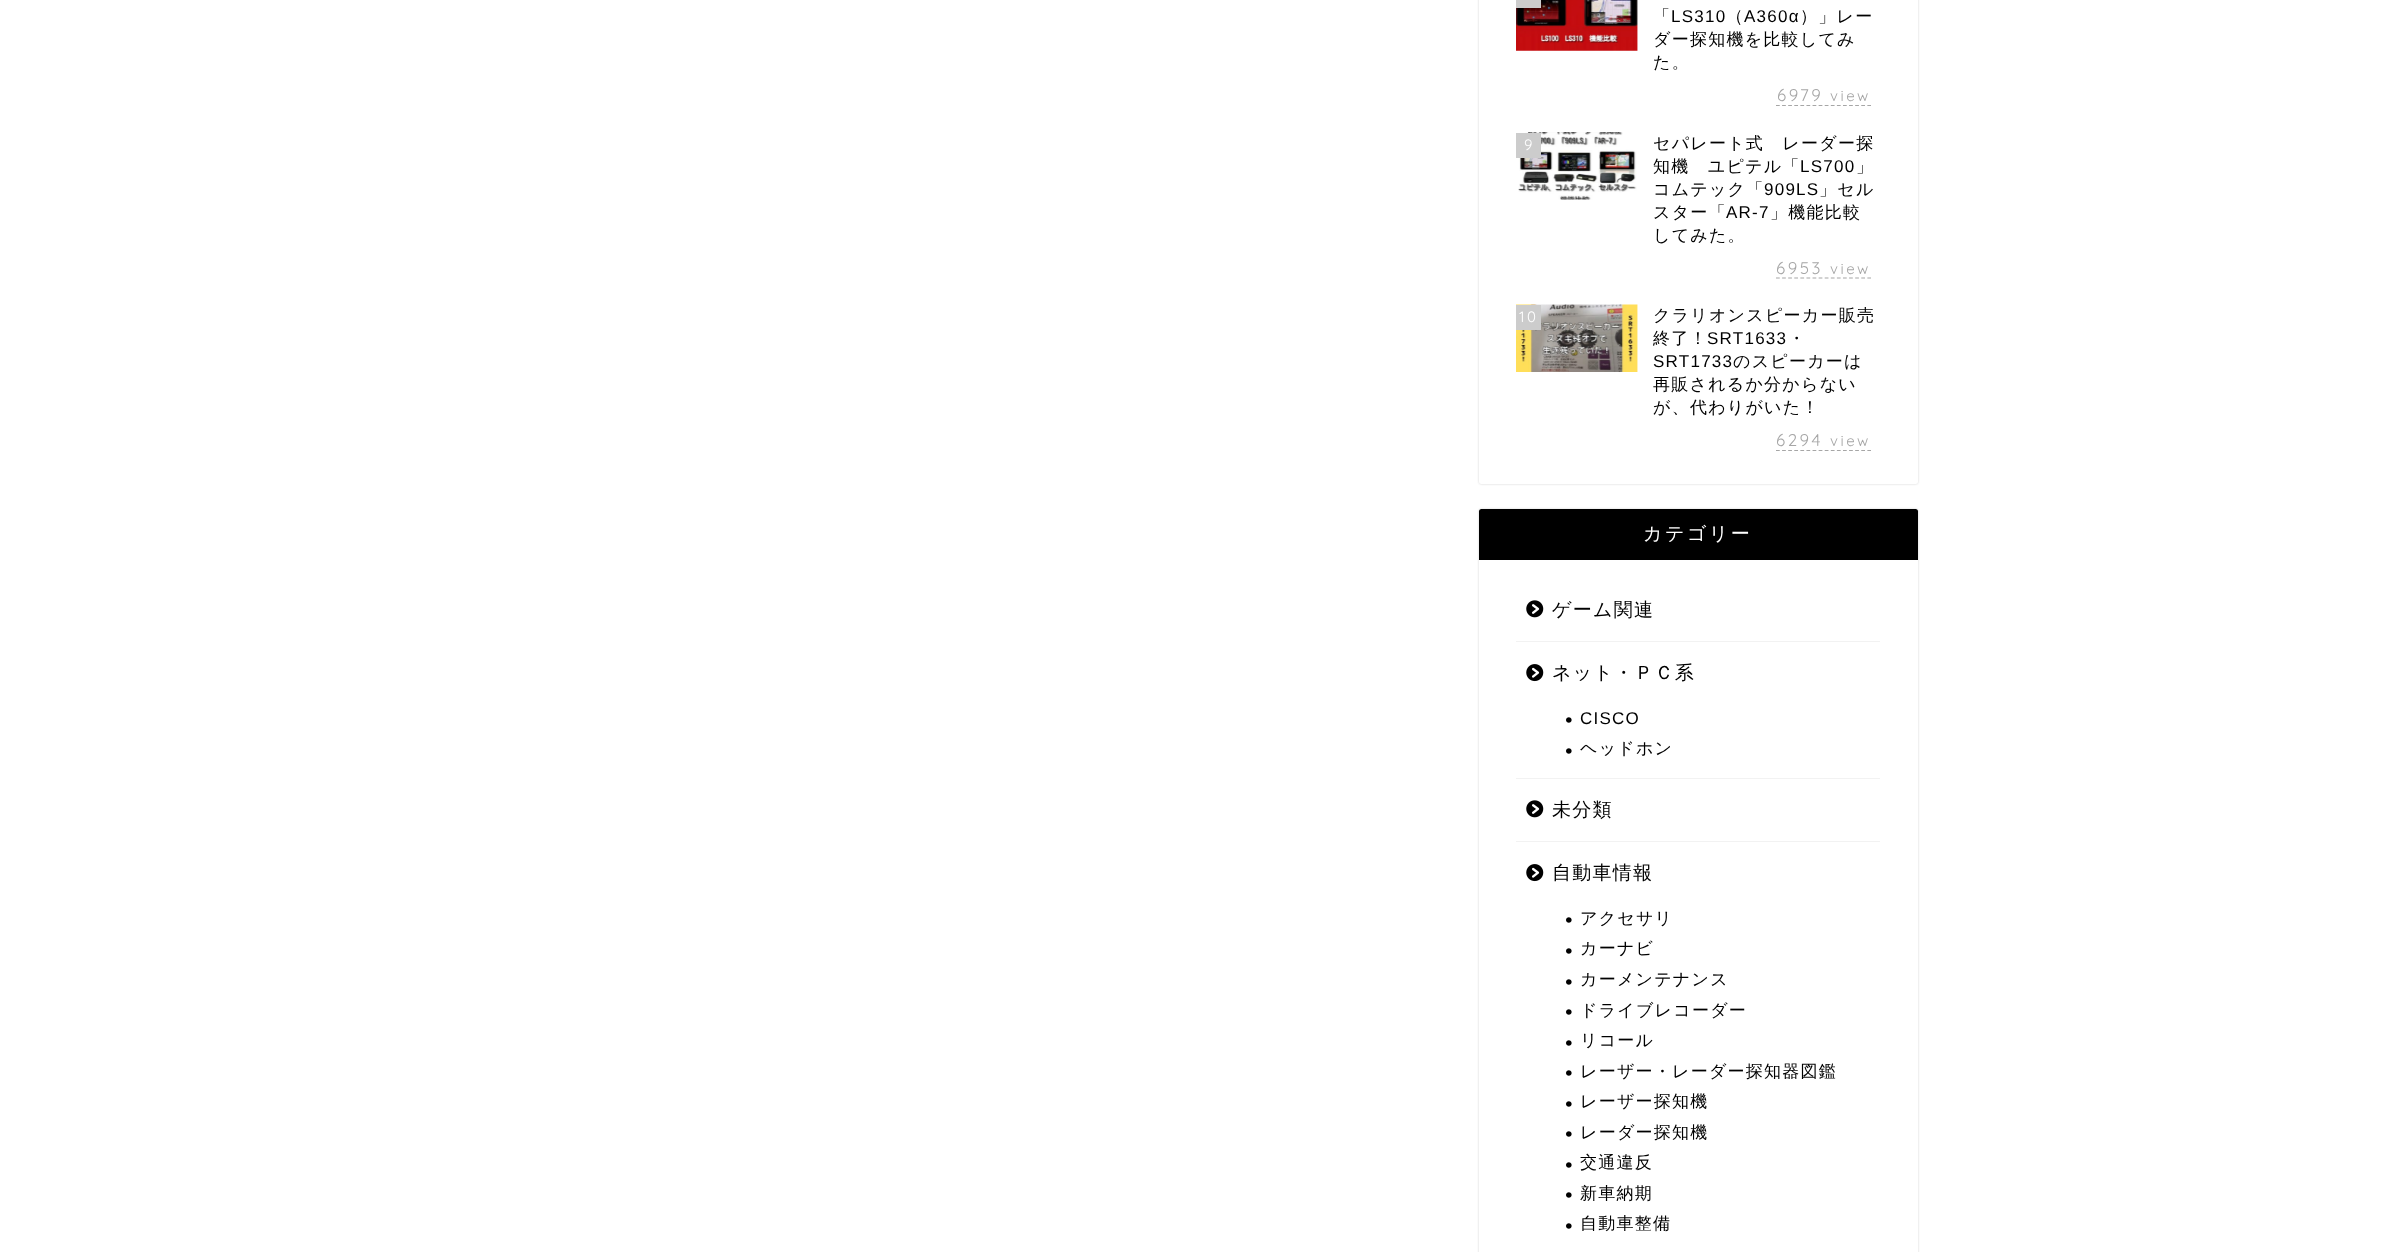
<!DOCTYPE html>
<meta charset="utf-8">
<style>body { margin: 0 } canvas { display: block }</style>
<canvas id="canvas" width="2408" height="1252"></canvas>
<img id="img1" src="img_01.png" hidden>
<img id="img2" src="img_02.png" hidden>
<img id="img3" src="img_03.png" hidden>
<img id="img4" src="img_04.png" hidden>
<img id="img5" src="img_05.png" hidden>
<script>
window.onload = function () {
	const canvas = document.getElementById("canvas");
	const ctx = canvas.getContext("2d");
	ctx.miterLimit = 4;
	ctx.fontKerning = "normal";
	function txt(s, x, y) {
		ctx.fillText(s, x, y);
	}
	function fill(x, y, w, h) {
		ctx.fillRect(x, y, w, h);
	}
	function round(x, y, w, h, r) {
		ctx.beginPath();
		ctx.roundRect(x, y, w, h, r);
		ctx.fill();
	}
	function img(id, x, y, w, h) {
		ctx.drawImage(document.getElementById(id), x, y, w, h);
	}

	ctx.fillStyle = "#FFFFFF";
	fill(0, 0, 2408, 1252);
	ctx.fillStyle = "rgba(0, 0, 0, 0.18)";
	ctx.filter = "blur(1px)";
	ctx.beginPath();
	ctx.roundRect(1479, -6, 439, 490, 2.5);
	ctx.fill();
	ctx.filter = "none";
	ctx.fillStyle = "#FFFFFF";
	round(1479, -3, 439, 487, 2.5);
	img("img1", 1516, 0, 122, 51);
	ctx.fillStyle = "#CCCCCC";
	fill(1516, 0, 25, 8);
	ctx.beginPath();
	ctx.moveTo(1776, 105.5);
	ctx.lineTo(1871, 105.5);
	ctx.strokeStyle = "#A6A6A6";
	ctx.lineWidth = 1.2;
	ctx.setLineDash([3.75, 2.34]);
	ctx.stroke();
	img("img2", 1518, 132, 119, 68);
	fill(1516, 133, 25, 25);
	ctx.beginPath();
	ctx.moveTo(1776, 278);
	ctx.lineTo(1871, 278);
	ctx.stroke();
	img("img3", 1516, 304, 122, 68);
	fill(1516, 305, 25, 25);
	ctx.beginPath();
	ctx.moveTo(1776, 450.5);
	ctx.lineTo(1871, 450.5);
	ctx.stroke();
	ctx.fillStyle = "rgba(0, 0, 0, 0.18)";
	ctx.filter = "blur(1px)";
	ctx.beginPath();
	ctx.roundRect(1479, 509, 439, 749, 2.5);
	ctx.fill();
	ctx.filter = "none";
	ctx.fillStyle = "#FFFFFF";
	round(1479, 509, 439, 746, 2.5);
	ctx.fillStyle = "#000000";
	ctx.beginPath();
	ctx.roundRect(1479, 509, 439, 51, [2.5, 2.5, 0, 0]);
	ctx.fill();
	ctx.fillStyle = "#F2F2F2";
	fill(1516, 641, 364, 1);
	img("img4", 1526, 600, 18, 18);
	fill(1516, 778, 364, 1);
	img("img5", 1526, 664, 18, 18);
	fill(1516, 841, 364, 1);
	img("img4", 1526, 800, 18, 18);
	img("img5", 1526, 864, 18, 18);
	ctx.letterSpacing = "1.25px";
	ctx.font = "500 17px WenQuanYi Zen Hei";
	ctx.fillStyle = "#000000";
	txt("「", 1653, 22);
	ctx.font = "17px Liberation Sans";
	txt("LS310", 1671, 22);
	ctx.font = "500 17px WenQuanYi Zen Hei";
	txt("（", 1726, 22);
	ctx.font = "17px Liberation Sans";
	txt("A360α", 1744, 22);
	ctx.font = "500 17px WenQuanYi Zen Hei";
	txt("）」レー", 1800, 22);
	txt("ダー探知機を比較してみ", 1653, 45);
	txt("た。", 1653, 68);
	ctx.letterSpacing = "2.5px";
	ctx.font = "300 17px Quicksand";
	ctx.fillStyle = "#A6A6A6";
	txt("6979", 1777, 101);
	ctx.font = "300 15px Quicksand";
	txt("view", 1830, 101);
	ctx.fillStyle = "#FFFFFF";
	txt("9", 1524, 150);
	ctx.letterSpacing = "1.25px";
	ctx.font = "500 17px WenQuanYi Zen Hei";
	ctx.fillStyle = "#000000";
	txt("セパレート式　レーダー探", 1653, 149);
	txt("知機　ユピテル「", 1653, 172);
	ctx.font = "17px Liberation Sans";
	txt("LS700", 1800, 172);
	ctx.font = "500 17px WenQuanYi Zen Hei";
	txt("」", 1856, 172);
	txt("コムテック「", 1653, 195);
	ctx.font = "17px Liberation Sans";
	txt("909LS", 1764, 195);
	ctx.font = "500 17px WenQuanYi Zen Hei";
	txt("」セル", 1819, 195);
	txt("スター「", 1653, 218);
	ctx.font = "17px Liberation Sans";
	txt("AR-7", 1726, 218);
	ctx.font = "500 17px WenQuanYi Zen Hei";
	txt("」機能比較", 1770, 218);
	txt("してみた。", 1653, 241);
	ctx.letterSpacing = "2.5px";
	ctx.font = "300 17px Quicksand";
	ctx.fillStyle = "#A6A6A6";
	txt("6953", 1776, 274);
	ctx.font = "300 15px Quicksand";
	txt("view", 1830, 274);
	ctx.fillStyle = "#FFFFFF";
	txt("10", 1519, 322);
	ctx.letterSpacing = "1.25px";
	ctx.font = "500 17px WenQuanYi Zen Hei";
	ctx.fillStyle = "#000000";
	txt("クラリオンスピーカー販売", 1653, 321);
	txt("終了！", 1653, 344);
	ctx.font = "17px Liberation Sans";
	txt("SRT1633", 1707, 344);
	ctx.font = "500 17px WenQuanYi Zen Hei";
	txt("・", 1788, 344);
	ctx.font = "17px Liberation Sans";
	txt("SRT1733", 1653, 367);
	ctx.font = "500 17px WenQuanYi Zen Hei";
	txt("のスピーカーは", 1733, 367);
	txt("再販されるか分からない", 1653, 390);
	txt("が、代わりがいた！", 1653, 413);
	ctx.letterSpacing = "2.5px";
	ctx.font = "300 17px Quicksand";
	ctx.fillStyle = "#A6A6A6";
	txt("6294", 1776, 446);
	ctx.font = "300 15px Quicksand";
	txt("view", 1830, 446);
	ctx.font = "500 19px WenQuanYi Zen Hei";
	ctx.fillStyle = "#FFFFFF";
	txt("カテゴリー", 1643, 540);
	ctx.letterSpacing = "1.25px";
	ctx.fillStyle = "#000000";
	txt("ゲーム関連", 1552, 616);
	txt("ネット・ＰＣ系", 1552, 679);
	ctx.font = "bold 30px WenQuanYi Zen Hei";
	txt("・", 1553, 731);
	ctx.font = "17px Liberation Sans";
	txt("CISCO", 1580, 724);
	ctx.font = "bold 30px WenQuanYi Zen Hei";
	txt("・", 1553, 762);
	ctx.font = "500 17px WenQuanYi Zen Hei";
	txt("ヘッドホン", 1580, 754);
	ctx.font = "500 19px WenQuanYi Zen Hei";
	txt("未分類", 1552, 816);
	txt("自動車情報", 1552, 879);
	ctx.font = "bold 30px WenQuanYi Zen Hei";
	txt("・", 1553, 931);
	ctx.font = "500 17px WenQuanYi Zen Hei";
	txt("アクセサリ", 1580, 924);
	ctx.font = "bold 30px WenQuanYi Zen Hei";
	txt("・", 1553, 962);
	ctx.font = "500 17px WenQuanYi Zen Hei";
	txt("カーナビ", 1580, 954);
	ctx.font = "bold 30px WenQuanYi Zen Hei";
	txt("・", 1553, 993);
	ctx.font = "500 17px WenQuanYi Zen Hei";
	txt("カーメンテナンス", 1580, 985);
	ctx.font = "bold 30px WenQuanYi Zen Hei";
	txt("・", 1553, 1023);
	ctx.font = "500 17px WenQuanYi Zen Hei";
	txt("ドライブレコーダー", 1580, 1016);
	ctx.font = "bold 30px WenQuanYi Zen Hei";
	txt("・", 1553, 1054);
	ctx.font = "500 17px WenQuanYi Zen Hei";
	txt("リコール", 1580, 1046);
	ctx.font = "bold 30px WenQuanYi Zen Hei";
	txt("・", 1553, 1084);
	ctx.font = "500 17px WenQuanYi Zen Hei";
	txt("レーザー・レーダー探知器図鑑", 1580, 1077);
	ctx.font = "bold 30px WenQuanYi Zen Hei";
	txt("・", 1553, 1115);
	ctx.font = "500 17px WenQuanYi Zen Hei";
	txt("レーザー探知機", 1580, 1107);
	ctx.font = "bold 30px WenQuanYi Zen Hei";
	txt("・", 1553, 1145);
	ctx.font = "500 17px WenQuanYi Zen Hei";
	txt("レーダー探知機", 1580, 1138);
	ctx.font = "bold 30px WenQuanYi Zen Hei";
	txt("・", 1553, 1176);
	ctx.font = "500 17px WenQuanYi Zen Hei";
	txt("交通違反", 1580, 1168);
	ctx.font = "bold 30px WenQuanYi Zen Hei";
	txt("・", 1553, 1206);
	ctx.font = "500 17px WenQuanYi Zen Hei";
	txt("新車納期", 1580, 1199);
	ctx.font = "bold 30px WenQuanYi Zen Hei";
	txt("・", 1553, 1237);
	ctx.font = "500 17px WenQuanYi Zen Hei";
	txt("自動車整備", 1580, 1229);
};
</script>
